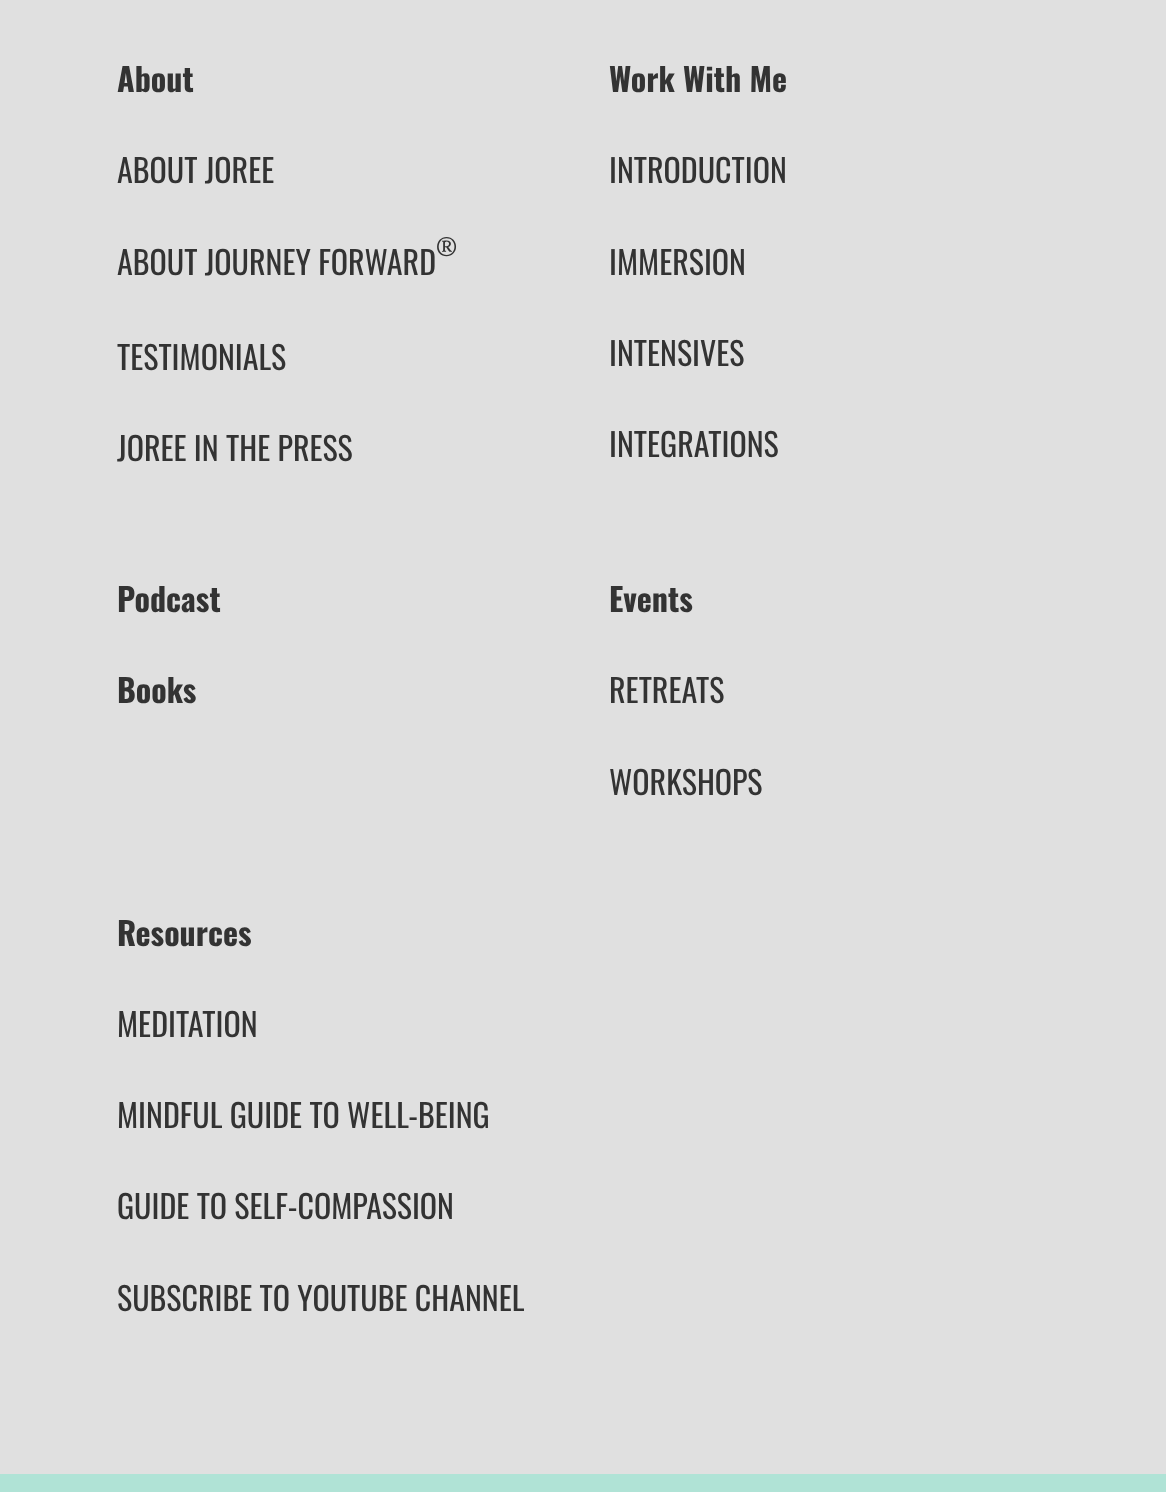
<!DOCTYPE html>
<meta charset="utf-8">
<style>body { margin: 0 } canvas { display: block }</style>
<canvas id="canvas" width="1166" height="1492"></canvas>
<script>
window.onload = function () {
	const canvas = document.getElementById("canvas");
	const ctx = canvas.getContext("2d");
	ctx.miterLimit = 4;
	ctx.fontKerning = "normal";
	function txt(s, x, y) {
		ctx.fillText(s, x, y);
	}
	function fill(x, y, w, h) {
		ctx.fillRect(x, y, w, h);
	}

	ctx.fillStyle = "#E0E0E0";
	fill(0, 0, 1166, 1492);
	ctx.fillStyle = "#B0E3D6";
	fill(0, 1474, 1166, 18);
	ctx.font = "bold 32px Oswald";
	ctx.fillStyle = "#333333";
	txt("About", 117, 92);
	ctx.font = "32px Oswald";
	txt("ABOUT JOREE", 117, 183);
	txt("ABOUT JOURNEY FORWARD", 117, 275);
	ctx.font = "24px Lora";
	txt("®", 436, 255);
	ctx.font = "32px Oswald";
	txt("TESTIMONIALS", 117, 370);
	txt("JOREE IN THE PRESS", 117, 461);
	ctx.font = "bold 32px Oswald";
	txt("Work With Me", 609, 92);
	ctx.font = "32px Oswald";
	txt("INTRODUCTION", 609, 183);
	txt("IMMERSION", 609, 275);
	txt("INTENSIVES", 609, 366);
	txt("INTEGRATIONS", 609, 457);
	ctx.font = "bold 32px Oswald";
	txt("Podcast", 117, 612);
	txt("Books", 117, 703);
	txt("Events", 609, 612);
	ctx.font = "32px Oswald";
	txt("RETREATS", 609, 703);
	txt("WORKSHOPS", 609, 795);
	ctx.font = "bold 32px Oswald";
	txt("Resources", 117, 946);
	ctx.font = "32px Oswald";
	txt("MEDITATION", 117, 1037);
	txt("MINDFUL GUIDE TO WELL-BEING", 117, 1128);
	txt("GUIDE TO SELF-COMPASSION", 117, 1219);
	txt("SUBSCRIBE TO YOUTUBE CHANNEL", 117, 1311);
};
</script>
